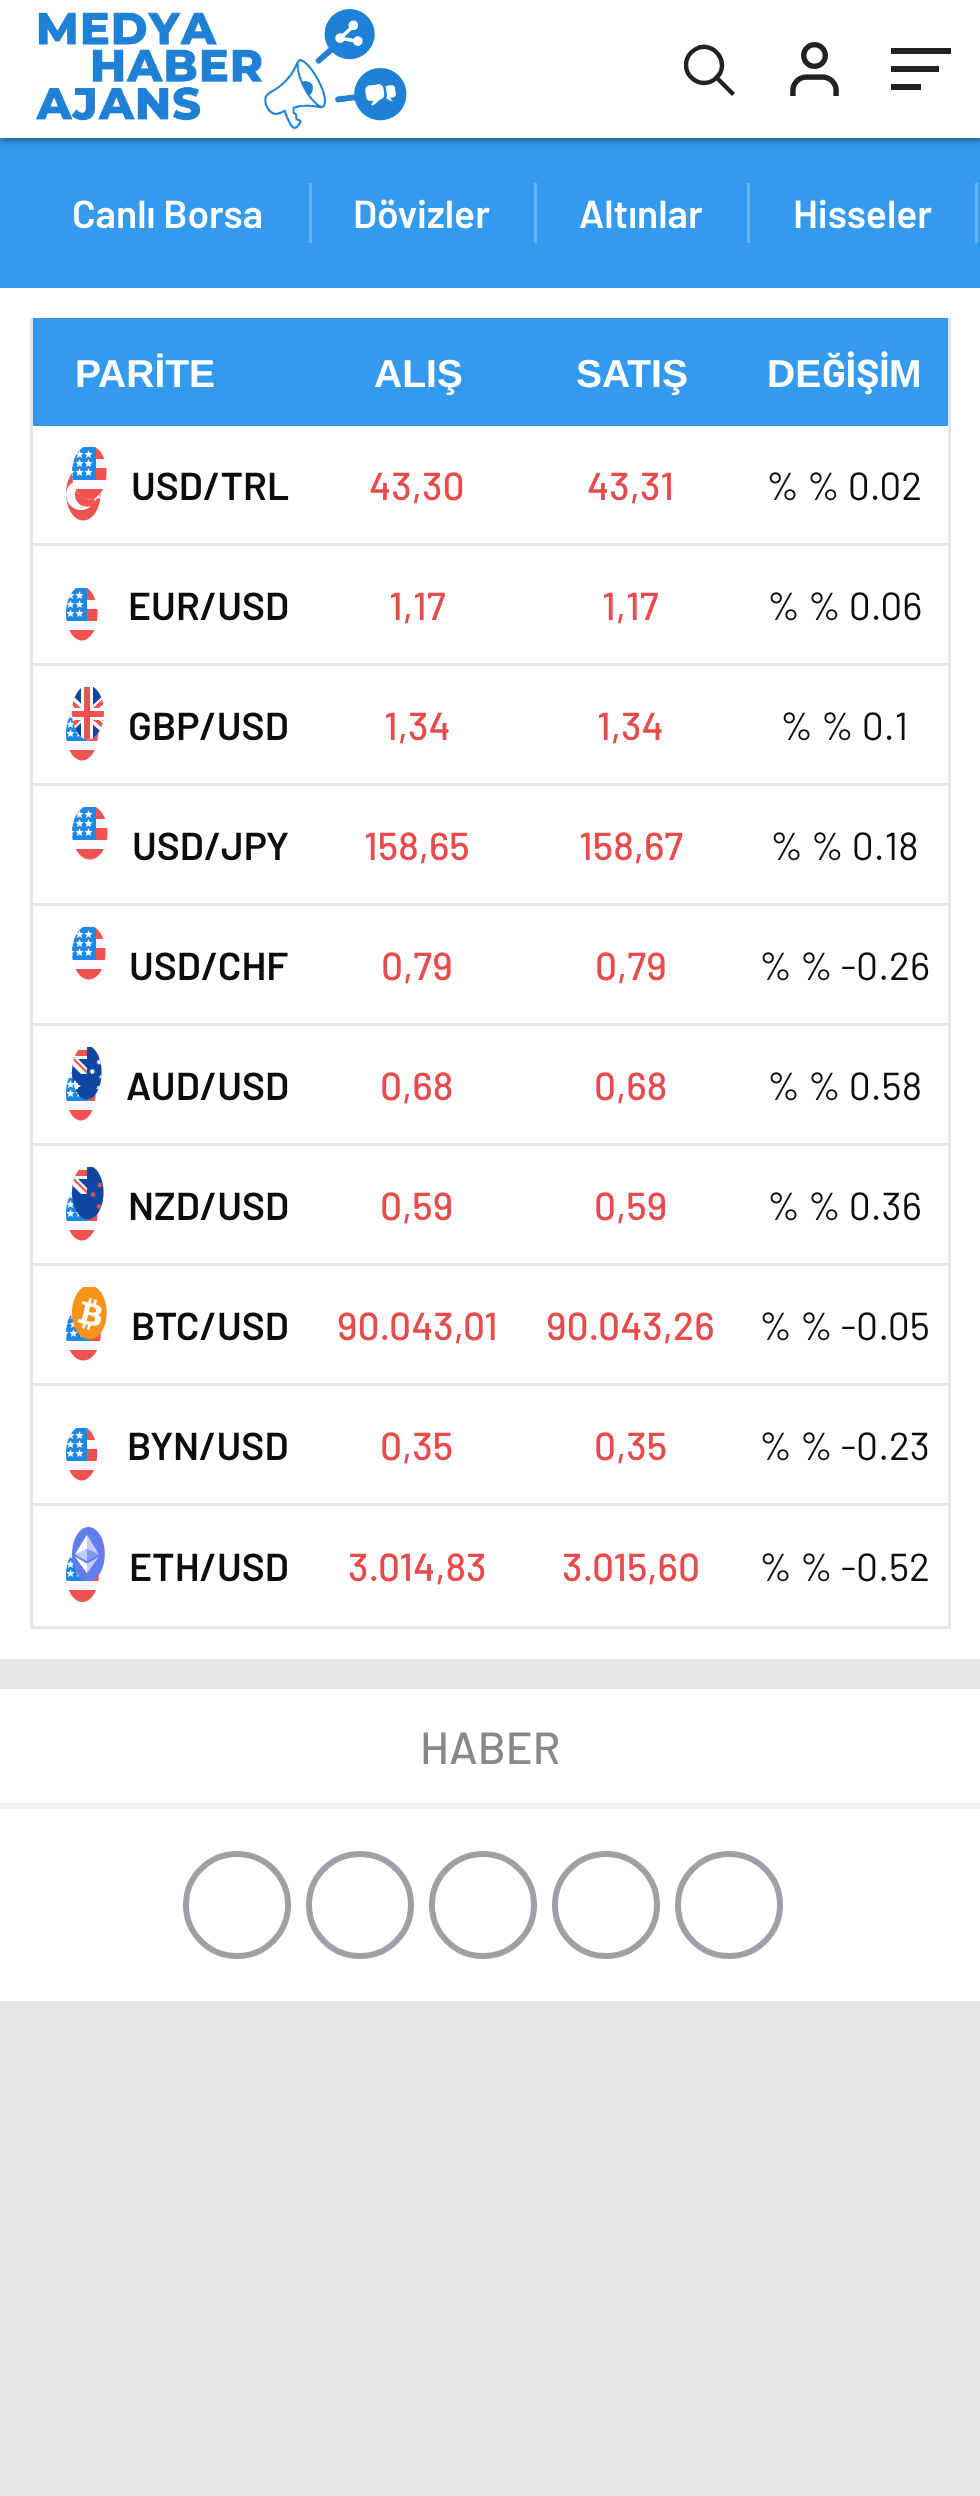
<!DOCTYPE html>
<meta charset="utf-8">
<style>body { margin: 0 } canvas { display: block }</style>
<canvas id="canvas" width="980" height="2496"></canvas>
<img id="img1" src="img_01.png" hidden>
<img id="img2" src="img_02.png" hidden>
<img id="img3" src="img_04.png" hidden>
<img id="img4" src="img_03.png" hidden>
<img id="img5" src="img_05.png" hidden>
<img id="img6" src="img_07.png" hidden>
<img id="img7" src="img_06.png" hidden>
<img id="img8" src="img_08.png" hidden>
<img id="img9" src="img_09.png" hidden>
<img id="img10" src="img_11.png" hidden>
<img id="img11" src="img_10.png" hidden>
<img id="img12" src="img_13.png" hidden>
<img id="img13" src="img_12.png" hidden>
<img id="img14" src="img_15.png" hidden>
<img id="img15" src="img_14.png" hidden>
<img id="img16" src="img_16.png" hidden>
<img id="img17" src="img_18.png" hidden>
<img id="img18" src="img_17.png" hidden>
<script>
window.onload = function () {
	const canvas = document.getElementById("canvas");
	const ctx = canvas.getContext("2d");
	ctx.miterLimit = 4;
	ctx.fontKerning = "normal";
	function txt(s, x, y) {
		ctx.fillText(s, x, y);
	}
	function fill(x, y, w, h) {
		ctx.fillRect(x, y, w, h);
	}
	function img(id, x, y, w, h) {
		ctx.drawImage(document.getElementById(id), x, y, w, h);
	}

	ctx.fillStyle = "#E5E5E5";
	fill(0, 0, 980, 2496);
	ctx.fillStyle = "#349AED";
	fill(0, 138, 980, 150);
	ctx.fillStyle = "rgba(0, 0, 0, 0.37)";
	ctx.filter = "blur(3px)";
	ctx.beginPath();
	ctx.rect(0, 3, 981, 138);
	ctx.fill();
	ctx.filter = "none";
	ctx.fillStyle = "#FFFFFF";
	fill(0, 0, 980, 138);
	img("img1", 35, 9, 372, 120);
	ctx.save();
	ctx.beginPath();
	ctx.rect(684, 42, 51, 57);
	ctx.clip();
	ctx.beginPath();
	ctx.moveTo(718, 79);
	ctx.lineTo(733.5, 94.5);
	ctx.closePath();
	ctx.moveTo(686, 65);
	ctx.bezierCurveTo(686, 59, 689.5, 53, 695, 49.5);
	ctx.bezierCurveTo(713, 38.5, 732, 64, 716, 78);
	ctx.bezierCurveTo(713, 81, 708.5, 83, 704, 83);
	ctx.bezierCurveTo(694.5, 82.5, 686, 75, 686, 65);
	ctx.closePath();
	ctx.strokeStyle = "#222222";
	ctx.lineWidth = 4.4;
	ctx.lineCap = "round";
	ctx.stroke();
	ctx.restore();
	img("img2", 790, 42, 49, 54);
	ctx.fillStyle = "#222222";
	fill(891, 48, 60, 6);
	fill(891, 66, 48, 6);
	fill(891, 84, 30, 6);
	ctx.fillStyle = "#67B3F2";
	fill(309, 183, 3, 60);
	fill(534, 183, 3, 60);
	fill(747, 183, 3, 60);
	fill(975, 183, 3, 60);
	ctx.fillStyle = "#FFFFFF";
	fill(0, 288, 980, 1371);
	ctx.fillStyle = "#E6E6E6";
	fill(948, 318, 3, 1311);
	fill(30, 1626, 921, 3);
	fill(30, 318, 3, 1311);
	ctx.fillStyle = "#349AED";
	fill(33, 318, 915, 108);
	ctx.fillStyle = "#E6E6E6";
	fill(33, 543, 915, 3);
	img("img3", 66, 473, 35, 48);
	img("img4", 72, 447, 35, 53);
	fill(33, 663, 915, 3);
	img("img5", 66, 588, 32, 53);
	fill(33, 783, 915, 3);
	img("img6", 66, 712, 32, 49);
	img("img7", 72, 687, 32, 53);
	fill(33, 903, 915, 3);
	img("img8", 72, 807, 36, 53);
	fill(33, 1023, 915, 3);
	img("img9", 72, 927, 34, 53);
	fill(33, 1143, 915, 3);
	img("img10", 66, 1070, 30, 51);
	img("img11", 72, 1047, 30, 53);
	fill(33, 1263, 915, 3);
	img("img12", 66, 1191, 32, 50);
	img("img13", 72, 1167, 32, 53);
	fill(33, 1383, 915, 3);
	img("img14", 66, 1312, 35, 49);
	img("img15", 72, 1287, 35, 53);
	fill(33, 1503, 915, 3);
	img("img16", 66, 1428, 32, 53);
	img("img17", 66, 1553, 33, 49);
	img("img18", 72, 1527, 33, 54);
	ctx.fillStyle = "#FFFFFF";
	fill(0, 1689, 980, 312);
	ctx.fillStyle = "#F1F1F1";
	fill(0, 1803, 980, 6);
	ctx.beginPath();
	ctx.arc(237, 1905, 51, 0, Math.PI * 2);
	ctx.strokeStyle = "#9DA1A4";
	ctx.lineWidth = 6;
	ctx.stroke();
	ctx.beginPath();
	ctx.arc(360, 1905, 51, 0, Math.PI * 2);
	ctx.stroke();
	ctx.beginPath();
	ctx.arc(483, 1905, 51, 0, Math.PI * 2);
	ctx.stroke();
	ctx.beginPath();
	ctx.arc(606, 1905, 51, 0, Math.PI * 2);
	ctx.stroke();
	ctx.beginPath();
	ctx.arc(729, 1905, 51, 0, Math.PI * 2);
	ctx.stroke();
	ctx.font = "600 39px Barlow";
	ctx.fillStyle = "#FFFFFF";
	txt("Canlı Borsa", 72, 228);
	txt("Dövizler", 353, 228);
	txt("Altınlar", 579, 228);
	txt("Hisseler", 793, 228);
	ctx.font = "bold 39px Liberation Sans";
	txt("PARİTE", 75, 387);
	txt("ALIŞ", 374, 387);
	txt("SATIŞ", 576, 387);
	txt("DE", 767, 387);
	ctx.font = "bold 39px Barlow";
	txt("ĞİŞİ", 822, 387);
	ctx.font = "bold 39px Liberation Sans";
	txt("M", 889, 387);
	ctx.font = "600 39px Barlow";
	ctx.fillStyle = "#0D0D0D";
	txt("USD/TRL", 131, 500);
	ctx.font = "500 39px Barlow";
	ctx.fillStyle = "#E74B4C";
	txt("43,30", 369, 500);
	txt("43,31", 587, 500);
	ctx.font = "39px Barlow";
	ctx.fillStyle = "#0D0D0D";
	txt("% % 0.02", 766, 500);
	ctx.font = "600 39px Barlow";
	txt("EUR/USD", 128, 620);
	ctx.font = "500 39px Barlow";
	ctx.fillStyle = "#E74B4C";
	txt("1,17", 389, 620);
	txt("1,17", 602, 620);
	ctx.font = "39px Barlow";
	ctx.fillStyle = "#0D0D0D";
	txt("% % 0.06", 767, 620);
	ctx.font = "600 39px Barlow";
	txt("GBP/USD", 128, 740);
	ctx.font = "500 39px Barlow";
	ctx.fillStyle = "#E74B4C";
	txt("1,34", 384, 740);
	txt("1,34", 597, 740);
	ctx.font = "39px Barlow";
	ctx.fillStyle = "#0D0D0D";
	txt("% % 0.1", 780, 740);
	ctx.font = "600 39px Barlow";
	txt("USD/JPY", 132, 860);
	ctx.font = "500 39px Barlow";
	ctx.fillStyle = "#E74B4C";
	txt("158,65", 364, 860);
	txt("158,67", 579, 860);
	ctx.font = "39px Barlow";
	ctx.fillStyle = "#0D0D0D";
	txt("% % 0.18", 770, 860);
	ctx.font = "600 39px Barlow";
	txt("USD/CHF", 129, 980);
	ctx.font = "500 39px Barlow";
	ctx.fillStyle = "#E74B4C";
	txt("0,79", 381, 980);
	txt("0,79", 595, 980);
	ctx.font = "39px Barlow";
	ctx.fillStyle = "#0D0D0D";
	txt("% % -0.26", 759, 980);
	ctx.font = "600 39px Barlow";
	txt("AUD/USD", 126, 1100);
	ctx.font = "500 39px Barlow";
	ctx.fillStyle = "#E74B4C";
	txt("0,68", 380, 1100);
	txt("0,68", 594, 1100);
	ctx.font = "39px Barlow";
	ctx.fillStyle = "#0D0D0D";
	txt("% % 0.58", 767, 1100);
	ctx.font = "600 39px Barlow";
	txt("NZD/USD", 128, 1220);
	ctx.font = "500 39px Barlow";
	ctx.fillStyle = "#E74B4C";
	txt("0,59", 380, 1220);
	txt("0,59", 594, 1220);
	ctx.font = "39px Barlow";
	ctx.fillStyle = "#0D0D0D";
	txt("% % 0.36", 767, 1220);
	ctx.font = "600 39px Barlow";
	txt("BTC/USD", 131, 1340);
	ctx.font = "500 39px Barlow";
	ctx.fillStyle = "#E74B4C";
	txt("90.043,01", 337, 1340);
	txt("90.043,26", 546, 1340);
	ctx.font = "39px Barlow";
	ctx.fillStyle = "#0D0D0D";
	txt("% % -0.05", 759, 1340);
	ctx.font = "600 39px Barlow";
	txt("BYN/USD", 127, 1460);
	ctx.font = "500 39px Barlow";
	ctx.fillStyle = "#E74B4C";
	txt("0,35", 380, 1460);
	txt("0,35", 594, 1460);
	ctx.font = "39px Barlow";
	ctx.fillStyle = "#0D0D0D";
	txt("% % -0.23", 759, 1460);
	ctx.font = "600 39px Barlow";
	txt("ETH/USD", 129, 1581);
	ctx.font = "500 39px Barlow";
	ctx.fillStyle = "#E74B4C";
	txt("3.014,83", 348, 1581);
	txt("3.015,60", 562, 1581);
	ctx.font = "39px Barlow";
	ctx.fillStyle = "#0D0D0D";
	txt("% % -0.52", 759, 1581);
	ctx.font = "500 45px Barlow";
	ctx.fillStyle = "#888888";
	txt("HABER", 420, 1764);
};
</script>
